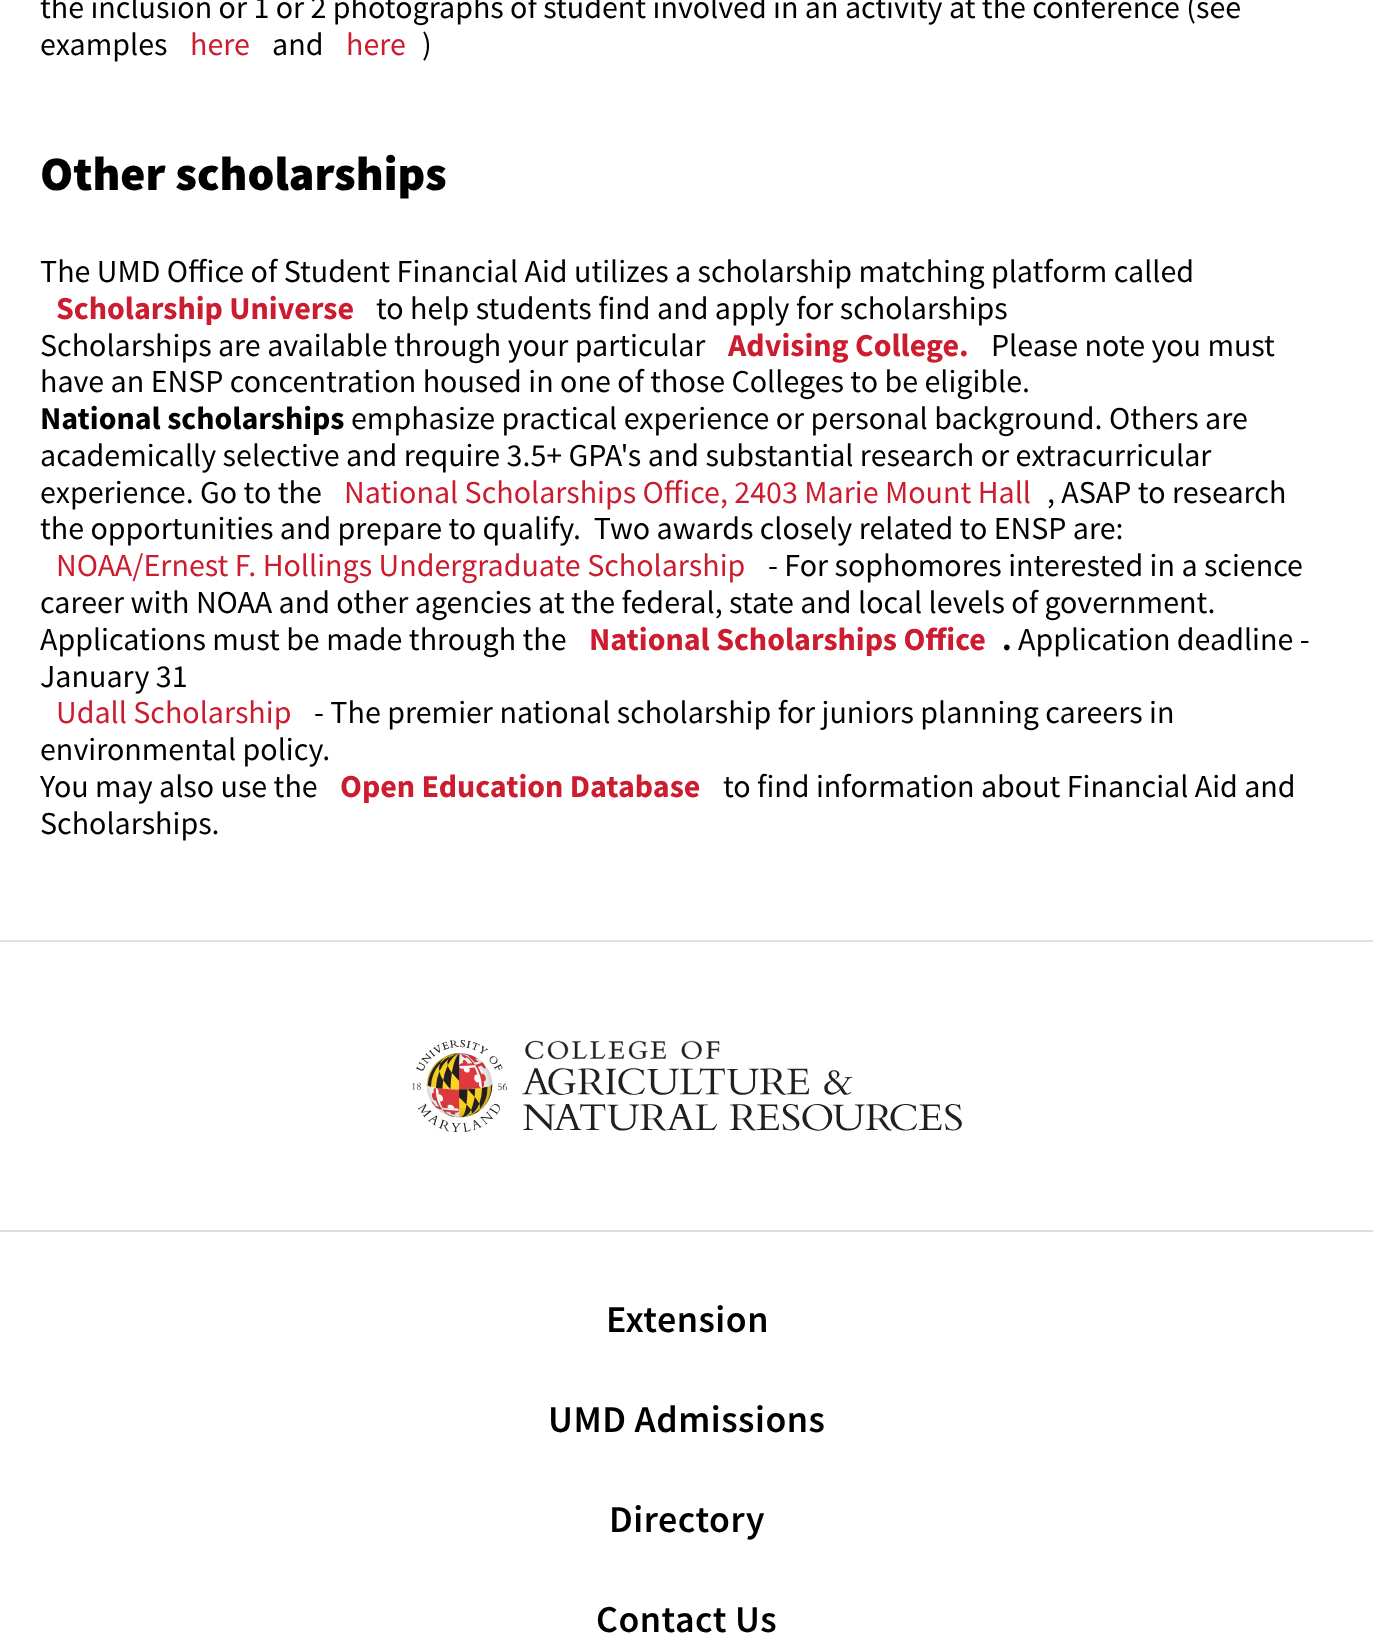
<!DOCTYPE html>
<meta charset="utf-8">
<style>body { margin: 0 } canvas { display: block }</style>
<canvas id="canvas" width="1373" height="1635"></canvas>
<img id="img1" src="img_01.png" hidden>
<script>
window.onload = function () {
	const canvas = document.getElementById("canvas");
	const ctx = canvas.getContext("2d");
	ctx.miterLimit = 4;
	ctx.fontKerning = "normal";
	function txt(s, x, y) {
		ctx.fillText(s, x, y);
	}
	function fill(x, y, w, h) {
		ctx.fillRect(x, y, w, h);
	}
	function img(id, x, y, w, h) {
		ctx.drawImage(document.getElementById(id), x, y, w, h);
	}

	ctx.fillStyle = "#FFFFFF";
	fill(0, 0, 1373, 1635);
	ctx.fillStyle = "#E3E0E0";
	fill(0, 940, 1373, 2);
	ctx.fillStyle = "#DCDCDC";
	fill(0, 1230, 1373, 2);
	img("img1", 412, 1040, 550, 92);
	ctx.font = "32px Source Sans Pro";
	ctx.fillStyle = "#000000";
	txt("the inclusion or 1 or 2 photographs of student involved in an activity at the conference (see", 40, 18);
	txt("examples", 40, 55);
	ctx.fillStyle = "#CC1C2F";
	txt("here", 190, 55);
	ctx.fillStyle = "#000000";
	txt("and", 272, 55);
	ctx.fillStyle = "#CC1C2F";
	txt("here", 346, 55);
	ctx.fillStyle = "#000000";
	txt(")", 422, 55);
	ctx.font = "900 48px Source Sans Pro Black";
	txt("Other scholarships", 40, 190);
	ctx.font = "32px Source Sans Pro";
	txt("The UMD Office of Student Financial Aid utilizes a scholarship matching platform called", 40, 282);
	ctx.font = "bold 32px Source Sans Pro";
	ctx.fillStyle = "#CC1C2F";
	txt("Scholarship Universe", 56, 319);
	ctx.font = "32px Source Sans Pro";
	ctx.fillStyle = "#000000";
	txt("to help students find and apply for scholarships", 376, 319);
	txt("Scholarships are available through your particular", 40, 356);
	ctx.font = "bold 32px Source Sans Pro";
	ctx.fillStyle = "#CC1C2F";
	txt("Advising College.", 728, 356);
	ctx.font = "32px Source Sans Pro";
	ctx.fillStyle = "#000000";
	txt("Please note you must", 991, 356);
	txt("have an ENSP concentration housed in one of those Colleges to be eligible.", 40, 392);
	ctx.font = "bold 32px Source Sans Pro";
	txt("National scholarships", 40, 429);
	ctx.font = "32px Source Sans Pro";
	txt("emphasize practical experience or personal background. Others are", 351, 429);
	txt("academically selective and require 3.5+ GPA's and substantial research or extracurricular", 40, 466);
	txt("experience. Go to the", 40, 503);
	ctx.fillStyle = "#CC1C2F";
	txt("National Scholarships Office, 2403 Marie Mount Hall", 344, 503);
	ctx.fillStyle = "#000000";
	txt(", ASAP to research", 1047, 503);
	txt("the opportunities and prepare to qualify.  Two awards closely related to ENSP are:", 40, 539);
	ctx.fillStyle = "#CC1C2F";
	txt("NOAA/Ernest F. Hollings Undergraduate Scholarship", 56, 576);
	ctx.fillStyle = "#000000";
	txt("- For sophomores interested in a science", 768, 576);
	txt("career with NOAA and other agencies at the federal, state and local levels of government.", 40, 613);
	txt("Applications must be made through the", 40, 650);
	ctx.font = "bold 32px Source Sans Pro";
	ctx.fillStyle = "#CC1C2F";
	txt("National Scholarships Office", 589, 650);
	ctx.fillStyle = "#000000";
	txt(".", 1002, 650);
	ctx.font = "32px Source Sans Pro";
	txt("Application deadline -", 1018, 650);
	txt("January 31", 40, 687);
	ctx.fillStyle = "#CC1C2F";
	txt("Udall Scholarship", 56, 723);
	ctx.fillStyle = "#000000";
	txt("- The premier national scholarship for juniors planning careers in", 314, 723);
	txt("environmental policy.", 40, 760);
	txt("You may also use the", 40, 797);
	ctx.font = "bold 32px Source Sans Pro";
	ctx.fillStyle = "#CC1C2F";
	txt("Open Education Database", 340, 797);
	ctx.font = "32px Source Sans Pro";
	ctx.fillStyle = "#000000";
	txt("to find information about Financial Aid and", 723, 797);
	txt("Scholarships.", 40, 834);
	ctx.letterSpacing = "0.5px";
	ctx.font = "600 38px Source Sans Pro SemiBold";
	txt("Extension", 606, 1332);
	txt("UMD Admissions", 548, 1432);
	txt("Directory", 609, 1532);
	txt("Contact Us", 596, 1632);
};
</script>
